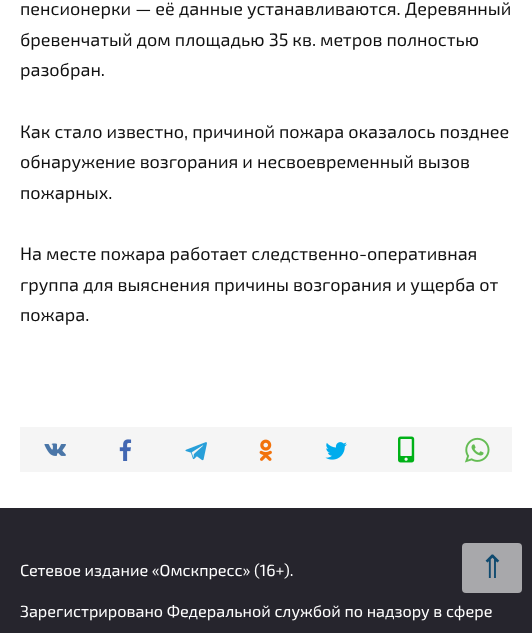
<!DOCTYPE html>
<meta charset="utf-8">
<style>body { margin: 0 } canvas { display: block }</style>
<canvas id="canvas" width="532" height="633"></canvas>
<img id="img1" src="img_01.png" hidden>
<img id="img2" src="img_02.png" hidden>
<img id="img3" src="img_03.png" hidden>
<img id="img4" src="img_04.png" hidden>
<img id="img5" src="img_05.png" hidden>
<img id="img6" src="img_06.png" hidden>
<img id="img7" src="img_07.png" hidden>
<script>
window.onload = function () {
	const canvas = document.getElementById("canvas");
	const ctx = canvas.getContext("2d");
	ctx.miterLimit = 4;
	ctx.fontKerning = "normal";
	function txt(s, x, y) {
		ctx.fillText(s, x, y);
	}
	function fill(x, y, w, h) {
		ctx.fillRect(x, y, w, h);
	}
	function round(x, y, w, h, r) {
		ctx.beginPath();
		ctx.roundRect(x, y, w, h, r);
		ctx.fill();
	}
	function img(id, x, y, w, h) {
		ctx.drawImage(document.getElementById(id), x, y, w, h);
	}

	ctx.fillStyle = "#FFFFFF";
	fill(0, 0, 532, 633);
	ctx.fillStyle = "#F5F5F5";
	fill(20, 427, 492, 45);
	img("img1", 44, 443, 22, 13);
	img("img2", 119, 439, 13, 22);
	img("img3", 185, 442, 22, 19);
	img("img4", 259, 439, 13, 22);
	img("img5", 325, 442, 22, 18);
	img("img6", 398, 436, 17, 27);
	img("img7", 464, 437, 26, 26);
	ctx.fillStyle = "#26252D";
	fill(0, 508, 532, 125);
	ctx.fillStyle = "#A8A8AB";
	round(462, 543, 60, 50, 4);
	ctx.font = "18px 'Exo 2'";
	ctx.fillStyle = "#111111";
	txt("пенсионерки — её данные устанавливаются. Деревянный", 20, 15);
	txt("бревенчатый дом площадью 35 кв. метров полностью", 20, 46);
	txt("разобран.", 20, 76);
	txt("Как стало известно, причиной пожара оказалось позднее", 20, 138);
	txt("обнаружение возгорания и несвоевременный вызов", 20, 168);
	txt("пожарных.", 20, 199);
	txt("На месте пожара работает следственно-оперативная", 20, 260);
	txt("группа для выяснения причины возгорания и ущерба от", 20, 291);
	txt("пожара.", 20, 321);
	ctx.font = "32px DejaVu Sans";
	ctx.fillStyle = "#0F4A6F";
	txt("⇑", 479, 578);
	ctx.font = "16.2px 'Exo 2'";
	ctx.fillStyle = "#FFFFFF";
	txt("Сетевое издание «Омскпресс» (16+).", 20, 576);
	txt("Зарегистрировано Федеральной службой по надзору в сфере", 20, 617);
};
</script>
